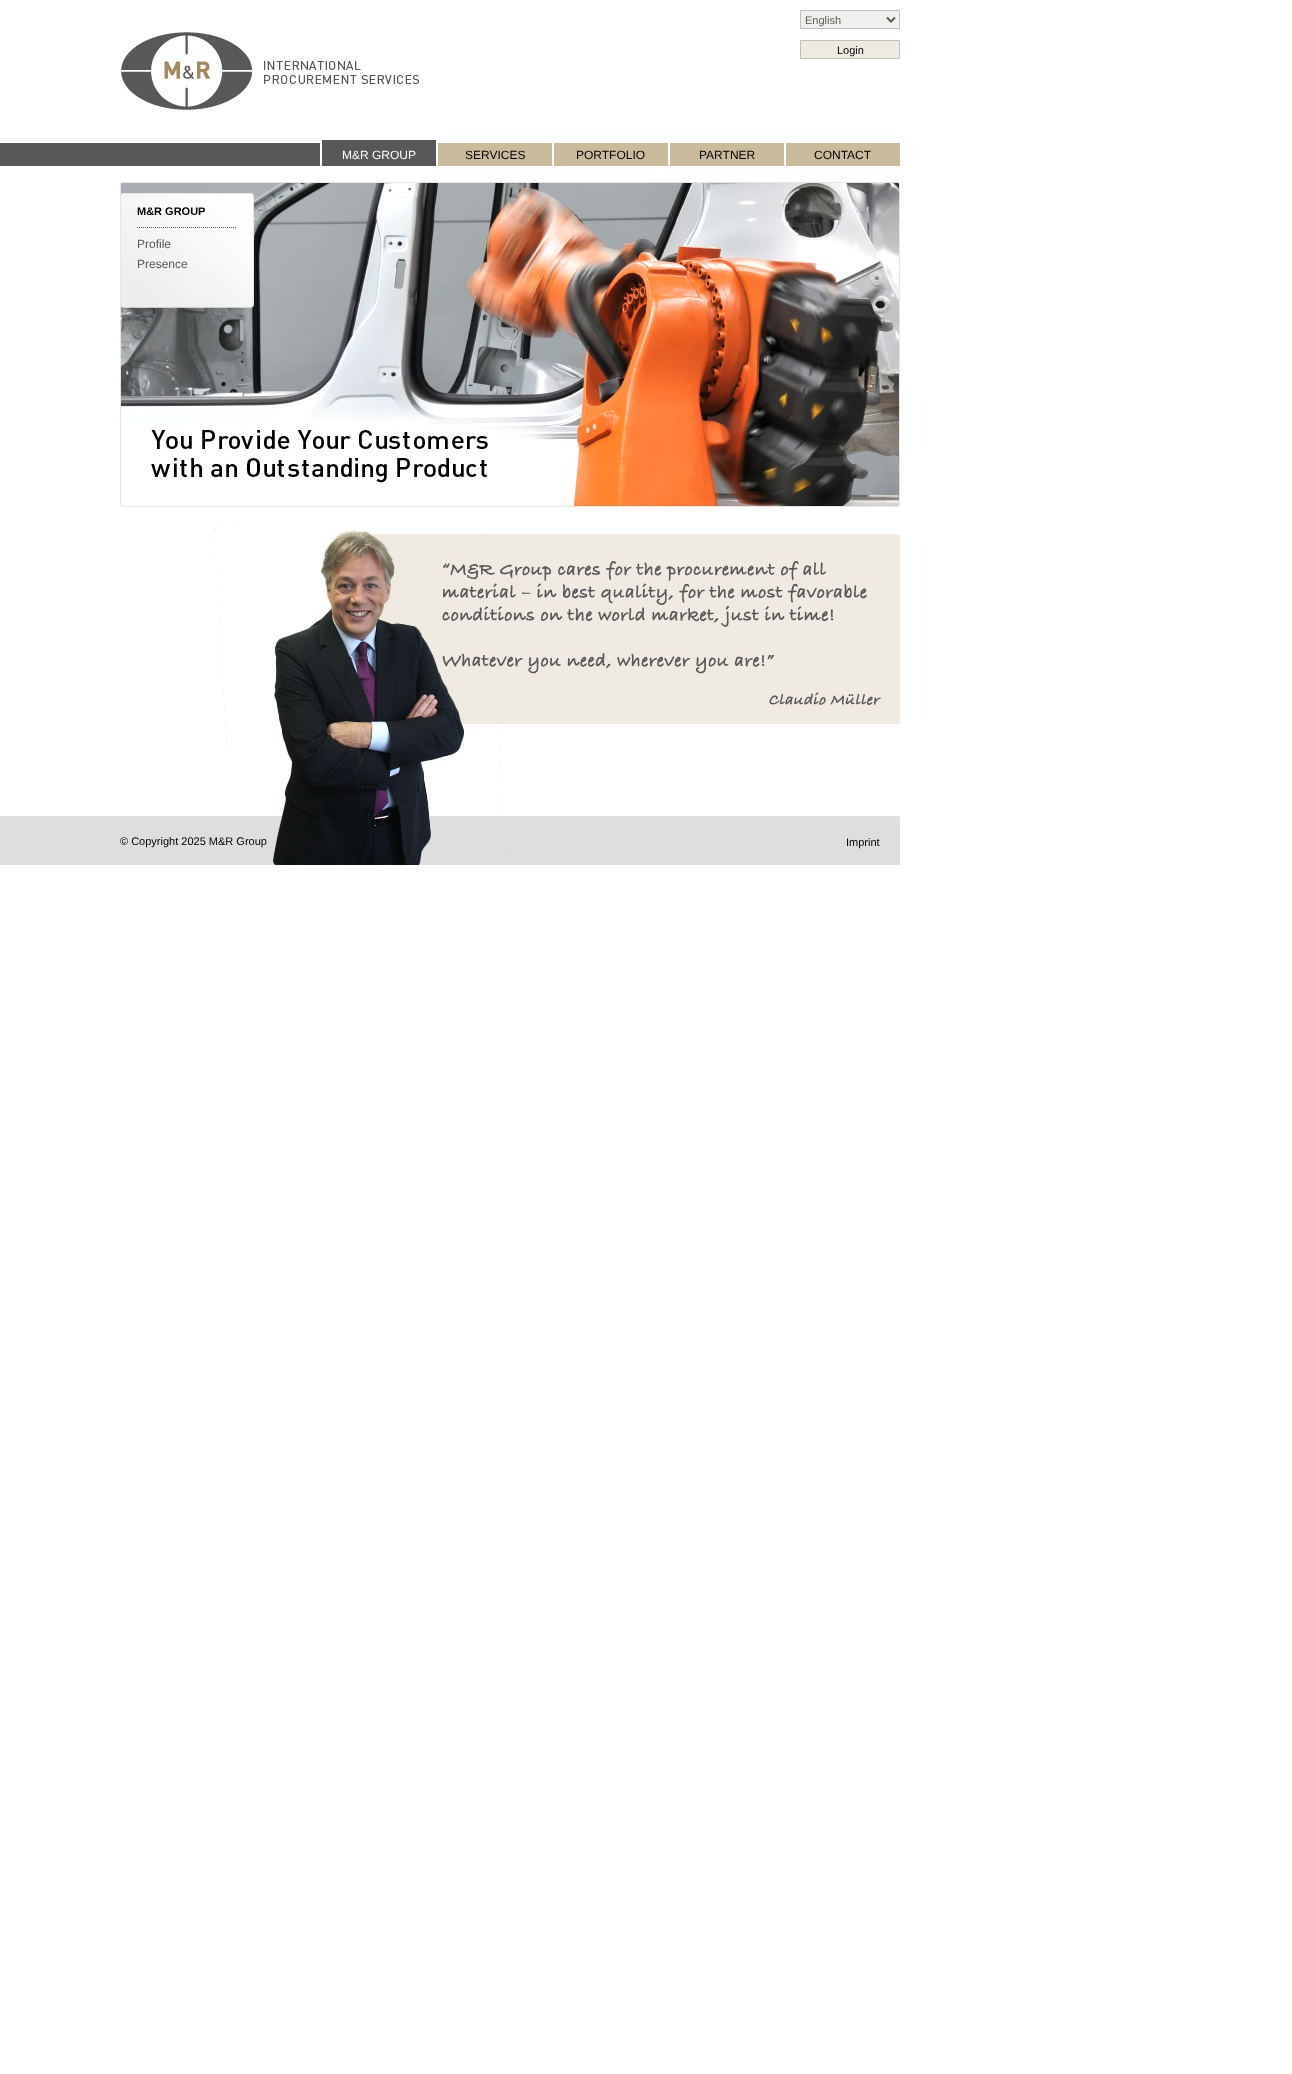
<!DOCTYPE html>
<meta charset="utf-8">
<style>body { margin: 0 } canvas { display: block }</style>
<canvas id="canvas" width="1292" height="2074"></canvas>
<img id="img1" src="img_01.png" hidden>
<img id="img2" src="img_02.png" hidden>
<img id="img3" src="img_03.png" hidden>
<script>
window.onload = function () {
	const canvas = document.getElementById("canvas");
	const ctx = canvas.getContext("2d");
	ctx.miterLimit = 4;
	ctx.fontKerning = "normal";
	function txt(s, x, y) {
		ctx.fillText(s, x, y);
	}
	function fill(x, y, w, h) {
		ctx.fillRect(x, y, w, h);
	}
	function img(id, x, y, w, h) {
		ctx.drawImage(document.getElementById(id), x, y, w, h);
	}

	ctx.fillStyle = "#FFFFFF";
	fill(0, 0, 1292, 2074);
	ctx.fillStyle = "#EFEFEF";
	ctx.beginPath();
	ctx.rect(800.5, 10.5, 99, 18);
	ctx.fill();
	ctx.strokeStyle = "#BFBFBF";
	ctx.stroke();
	ctx.beginPath();
	ctx.moveTo(887, 17.5);
	ctx.lineTo(891, 21.5);
	ctx.lineTo(895, 17.5);
	ctx.strokeStyle = "#5E594A";
	ctx.lineWidth = 2;
	ctx.stroke();
	img("img1", 121, 32, 300, 79);
	ctx.fillStyle = "#EFEAE1";
	ctx.beginPath();
	ctx.rect(800.5, 40.5, 99, 18);
	ctx.fill();
	ctx.strokeStyle = "#BFBFBF";
	ctx.lineWidth = 1;
	ctx.stroke();
	ctx.fillStyle = "#58585A";
	fill(0, 143, 320, 23);
	fill(322, 140, 114, 26);
	ctx.fillStyle = "#CBBB9D";
	fill(438, 143, 114, 23);
	fill(554, 143, 114, 23);
	fill(670, 143, 114, 23);
	fill(786, 143, 114, 23);
	img("img2", 120, 182, 780, 325);
	ctx.fillStyle = "#DEDEDE";
	fill(0, 816, 213, 49);
	img("img3", 213, 526, 687, 339);
	ctx.font = "11px Liberation Sans";
	ctx.fillStyle = "#5E594A";
	txt("English", 805, 24);
	ctx.fillStyle = "#000000";
	txt("Login", 837, 54);
	ctx.font = "12px Liberation Sans";
	ctx.fillStyle = "#FFFFFF";
	txt("M&R GROUP", 342, 159);
	ctx.fillStyle = "#000000";
	txt("SERVICES", 465, 159);
	txt("PORTFOLIO", 576, 159);
	txt("PARTNER", 699, 159);
	txt("CONTACT", 814, 159);
	ctx.font = "bold 11px Liberation Sans";
	txt("M&R GROUP", 137, 215);
	ctx.font = "12px Liberation Sans";
	ctx.fillStyle = "#58585A";
	txt("Profile", 137, 248);
	txt("Presence", 137, 268);
	ctx.font = "11px Liberation Sans";
	ctx.fillStyle = "#000000";
	txt("© Copyright 2025 M&R Group", 120, 845);
	txt("Imprint", 846, 846);
};
</script>
